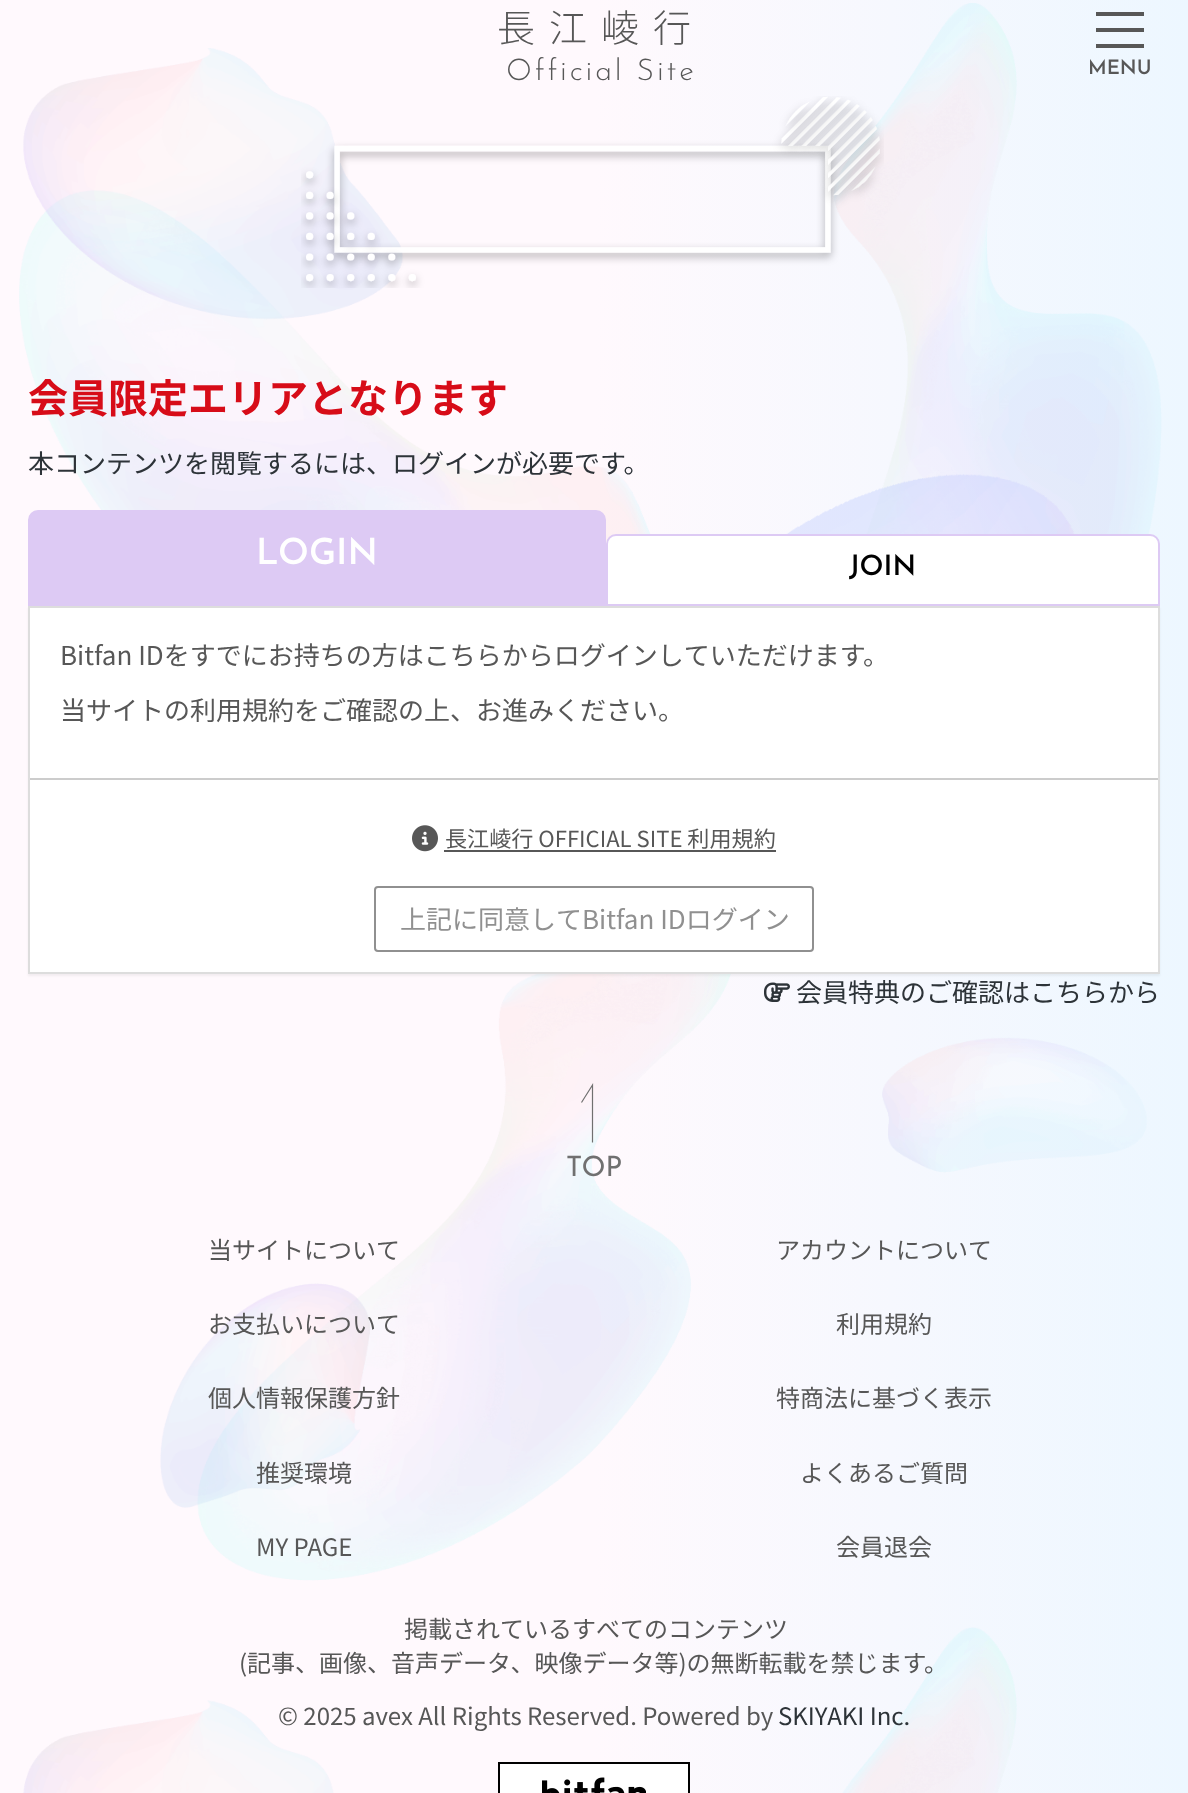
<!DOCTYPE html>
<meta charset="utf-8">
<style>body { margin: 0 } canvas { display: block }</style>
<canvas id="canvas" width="1188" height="1793"></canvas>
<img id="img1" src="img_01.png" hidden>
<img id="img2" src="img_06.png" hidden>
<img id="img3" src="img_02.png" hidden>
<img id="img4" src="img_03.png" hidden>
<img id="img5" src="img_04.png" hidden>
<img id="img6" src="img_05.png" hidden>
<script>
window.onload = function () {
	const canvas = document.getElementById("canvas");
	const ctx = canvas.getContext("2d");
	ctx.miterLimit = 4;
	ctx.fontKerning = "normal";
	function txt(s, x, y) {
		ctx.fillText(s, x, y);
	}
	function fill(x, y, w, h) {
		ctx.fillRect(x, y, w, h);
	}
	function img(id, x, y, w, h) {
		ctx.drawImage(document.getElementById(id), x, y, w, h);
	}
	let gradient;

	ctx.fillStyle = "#FFFFFF";
	fill(0, 0, 1188, 1793);
	gradient = ctx.createLinearGradient(0, 923, 1188, 923);
	gradient.addColorStop(0, "#FFF9FD");
	gradient.addColorStop(0.5, "#FFF9FD");
	gradient.addColorStop(1, "#EDF7FF");
	ctx.fillStyle = gradient;
	fill(0, 0, 1188, 1793);
	img("img1", 19, 3, 1143, 1790);
	ctx.fillStyle = "#575757";
	fill(1096, 12, 48, 4);
	fill(1096, 28, 48, 4);
	fill(1096, 44, 48, 4);
	img("img2", 23, 48, 1052, 1745);
	img("img3", 301, 96, 583, 192);
	ctx.fillStyle = "rgba(0, 0, 0, 0.05)";
	ctx.filter = "blur(1px)";
	ctx.beginPath();
	ctx.rect(28, 608, 1132, 368);
	ctx.fill();
	ctx.filter = "none";
	ctx.fillStyle = "#DDCAF4";
	ctx.beginPath();
	ctx.roundRect(29, 511, 576, 94, [9, 9, 0, 0]);
	ctx.fill();
	ctx.strokeStyle = "#DDCAF4";
	ctx.lineWidth = 2;
	ctx.stroke();
	ctx.fillStyle = "#FFFFFF";
	ctx.beginPath();
	ctx.roundRect(607, 535, 552, 70, [9, 9, 0, 0]);
	ctx.fill();
	ctx.stroke();
	ctx.beginPath();
	ctx.rect(29, 607, 1130, 366);
	ctx.fill();
	ctx.strokeStyle = "#DDDDDD";
	ctx.stroke();
	ctx.fillStyle = "#CCCCCC";
	fill(30, 778, 1128, 2);
	img("img4", 412, 825, 26, 27);
	ctx.fillStyle = "#575757";
	fill(444, 850, 332, 2);
	ctx.beginPath();
	ctx.roundRect(375, 887, 438, 64, 3);
	ctx.strokeStyle = "#909090";
	ctx.stroke();
	img("img5", 764, 982, 26, 20);
	ctx.beginPath();
	ctx.moveTo(592.5, 1142.5);
	ctx.lineTo(592.5, 1085);
	ctx.lineTo(581.5, 1102.5);
	ctx.strokeStyle = "#707070";
	ctx.lineWidth = 1.2;
	ctx.stroke();
	ctx.fillStyle = "#FFFFFF";
	ctx.beginPath();
	ctx.rect(499, 1763, 190, 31);
	ctx.fill();
	ctx.strokeStyle = "#000000";
	ctx.lineWidth = 2;
	ctx.stroke();
	img("img6", 542, 1777, 104, 16);
	ctx.letterSpacing = "14px";
	ctx.font = "300 38px Noto Sans JP";
	ctx.fillStyle = "#575757";
	txt("長江崚行", 497, 42);
	ctx.letterSpacing = "2.9px";
	ctx.font = "300 30px Josefin Sans";
	txt("Official Site", 506, 80);
	ctx.letterSpacing = "0px";
	ctx.font = "600 20px Josefin Sans";
	txt("MENU", 1088, 74);
	ctx.font = "bold 40px Noto Sans JP";
	ctx.fillStyle = "#D70C18";
	txt("会員限定エリアとなります", 28, 413);
	ctx.font = "26px Noto Sans JP";
	ctx.fillStyle = "#2D3338";
	txt("本コンテンツを閲覧するには、ログインが必要です。", 28, 473);
	ctx.font = "600 36px Josefin Sans";
	ctx.fillStyle = "#FFFFFF";
	txt("LOGIN", 256, 564);
	ctx.font = "600 28px Josefin Sans";
	ctx.fillStyle = "#000000";
	txt("JOIN", 849, 575);
	ctx.font = "26px Noto Sans JP";
	ctx.fillStyle = "#575757";
	txt("Bitfan IDをすでにお持ちの方はこちらからログインしていただけます。", 60, 665);
	txt("当サイトの利用規約をご確認の上、お進みください。", 60, 720);
	ctx.font = "22.1px Noto Sans JP";
	txt("長江崚行 OFFICIAL SITE 利用規約", 445, 847);
	ctx.font = "26px Noto Sans JP";
	ctx.fillStyle = "#909090";
	txt("上記に同意してBitfan IDログイン", 400, 929);
	ctx.fillStyle = "#2D3338";
	txt("会員特典のご確認はこちらから", 796, 1002);
	ctx.font = "28px Josefin Sans";
	ctx.fillStyle = "#707070";
	txt("TOP", 566, 1176);
	ctx.font = "24px Noto Sans JP";
	ctx.fillStyle = "#575757";
	txt("当サイトについて", 208, 1259);
	txt("アカウントについて", 776, 1259);
	txt("お支払いについて", 208, 1333);
	txt("利用規約", 836, 1333);
	txt("個人情報保護方針", 208, 1407);
	txt("特商法に基づく表示", 776, 1407);
	txt("推奨環境", 256, 1482);
	txt("よくあるご質問", 800, 1482);
	txt("MY PAGE", 256, 1556);
	txt("会員退会", 836, 1556);
	txt("掲載されているすべてのコンテンツ", 404, 1638);
	txt("(記事、画像、音声データ、映像データ等)の無断転載を禁じます。", 239, 1672);
	txt("© 2025 avex All Rights Reserved. Powered by", 278, 1725);
	ctx.fillStyle = "#2D3338";
	txt("SKIYAKI Inc.", 778, 1725);
};
</script>
